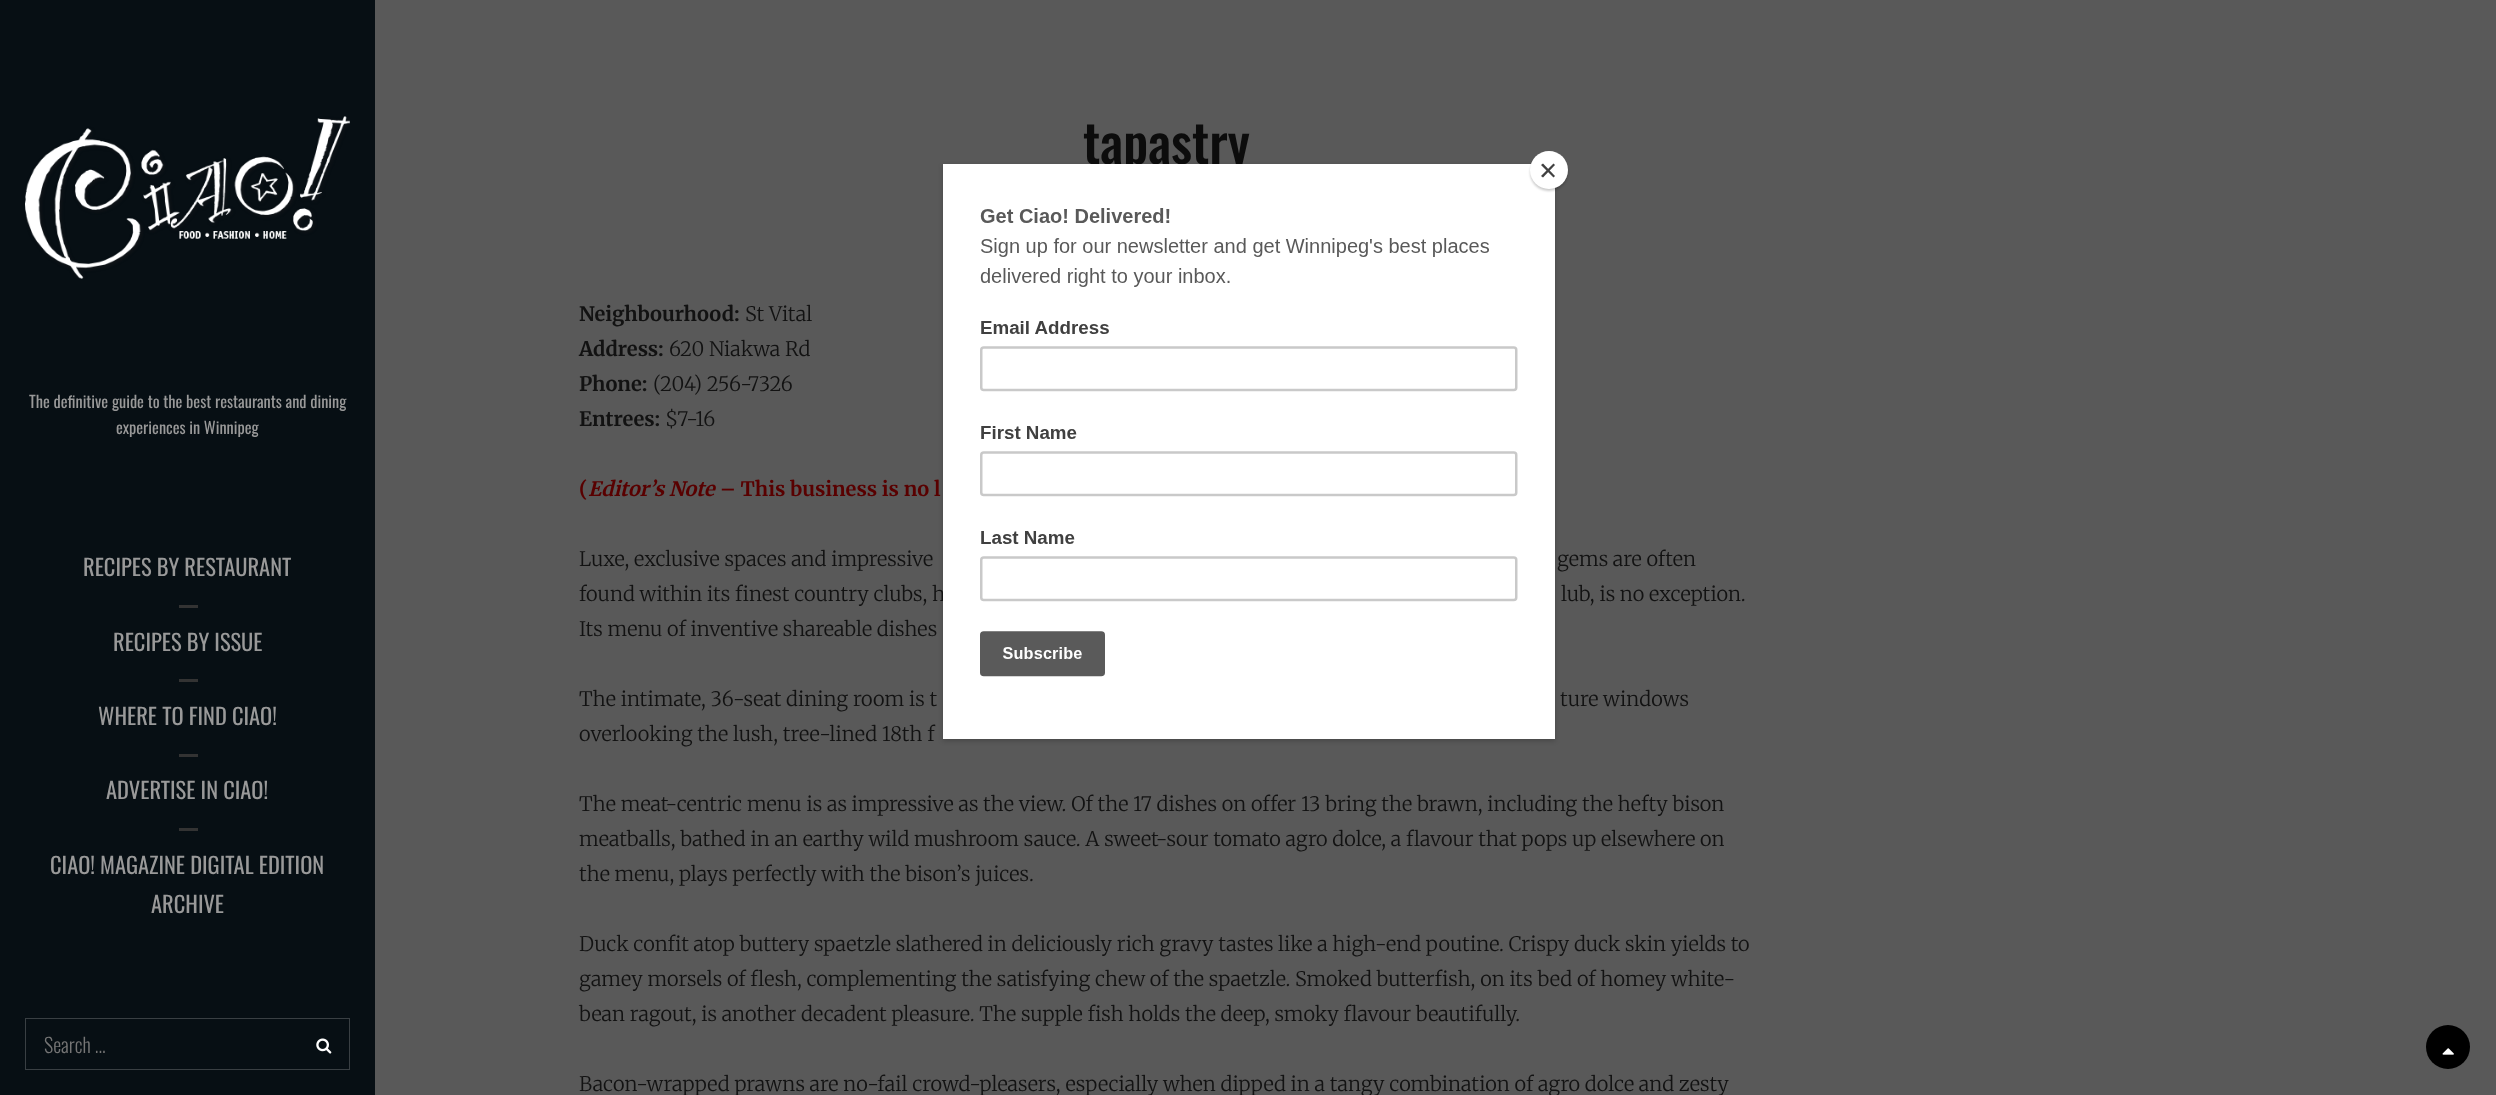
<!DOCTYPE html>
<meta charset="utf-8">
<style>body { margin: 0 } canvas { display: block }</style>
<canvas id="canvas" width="2496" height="1095"></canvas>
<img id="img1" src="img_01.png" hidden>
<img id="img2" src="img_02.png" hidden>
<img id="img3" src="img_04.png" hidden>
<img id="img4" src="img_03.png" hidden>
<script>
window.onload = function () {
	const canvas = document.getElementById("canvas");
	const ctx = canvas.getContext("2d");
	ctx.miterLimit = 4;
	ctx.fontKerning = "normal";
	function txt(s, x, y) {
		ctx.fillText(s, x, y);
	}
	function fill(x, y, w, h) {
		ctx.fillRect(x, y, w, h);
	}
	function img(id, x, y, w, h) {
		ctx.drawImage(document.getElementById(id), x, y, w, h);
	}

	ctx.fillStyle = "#595959";
	fill(0, 0, 2496, 1095);
	ctx.fillStyle = "#070F14";
	fill(0, 0, 375, 1095);
	img("img1", 25, 116, 325, 163);
	ctx.fillStyle = "#333333";
	fill(179, 605, 19, 3);
	fill(179, 679, 19, 3);
	fill(179, 754, 19, 3);
	fill(179, 828, 19, 3);
	ctx.strokeStyle = "#393F43";
	ctx.strokeRect(25.5, 1018.5, 324, 51);
	img("img2", 316, 1038, 16, 16);
	ctx.fillStyle = "rgba(0, 0, 0, 0.2)";
	ctx.filter = "blur(2.5px)";
	ctx.beginPath();
	ctx.rect(943, 166, 612, 575);
	ctx.fill();
	ctx.filter = "none";
	ctx.fillStyle = "#000000";
	ctx.beginPath();
	ctx.arc(2448, 1047, 22, 0, Math.PI * 2);
	ctx.fill();
	img("img3", 2442, 1048, 12, 7);
	ctx.font = "16.25px Oswald";
	ctx.fillStyle = "#999999";
	txt("The definitive guide to the best restaurants and dining", 29, 408);
	txt("experiences in Winnipeg", 116, 434);
	ctx.font = "22.5px Oswald";
	txt("RECIPES BY RESTAURANT", 83, 576);
	txt("RECIPES BY ISSUE", 113, 651);
	txt("WHERE TO FIND CIAO!", 98, 725);
	txt("ADVERTISE IN CIAO!", 106, 799);
	txt("CIAO! MAGAZINE DIGITAL EDITION", 50, 874);
	txt("ARCHIVE", 151, 913);
	ctx.font = "300 20px Oswald";
	ctx.fillStyle = "#757575";
	txt("Search ...", 44, 1053);
	ctx.font = "500 52.5px Oswald";
	ctx.fillStyle = "#0C0C0C";
	txt("tapastry", 1083, 164);
	ctx.font = "bold 20px Merriweather";
	ctx.fillStyle = "#121212";
	txt("Neighbourhood:", 579, 321);
	ctx.font = "300 20px Merriweather";
	txt("St Vital", 745, 321);
	ctx.font = "bold 20px Merriweather";
	txt("Address:", 579, 356);
	ctx.font = "300 20px Merriweather";
	txt("620 Niakwa Rd", 669, 356);
	ctx.font = "bold 20px Merriweather";
	txt("Phone:", 579, 391);
	ctx.font = "300 20px Merriweather";
	txt("(204) 256-7326", 653, 391);
	ctx.font = "bold 20px Merriweather";
	txt("Entrees:", 579, 426);
	ctx.font = "300 20px Merriweather";
	txt("$7-16", 665, 426);
	ctx.font = "bold 20px Merriweather";
	ctx.fillStyle = "#590000";
	txt("(", 579, 496);
	ctx.font = "italic bold 20px Merriweather";
	txt("Editor’s Note", 588, 496);
	ctx.font = "bold 20px Merriweather";
	txt("– This business is no l", 720, 496);
	ctx.font = "300 20px Merriweather";
	ctx.fillStyle = "#121212";
	txt("Luxe, exclusive spaces and impressive", 579, 566);
	txt("gems are often", 1557, 566);
	txt("found within its finest country clubs, h", 579, 601);
	txt("lub, is no exception.", 1561, 601);
	txt("Its menu of inventive shareable dishes", 579, 636);
	txt("The intimate, 36-seat dining room is t", 579, 706);
	txt("ture windows", 1560, 706);
	txt("overlooking the lush, tree-lined 18th f", 579, 741);
	txt("The meat-centric menu is as impressive as the view. Of the 17 dishes on offer 13 bring the brawn, including the hefty bison", 579, 811);
	txt("meatballs, bathed in an earthy wild mushroom sauce. A sweet-sour tomato agro dolce, a flavour that pops up elsewhere on", 579, 846);
	txt("the menu, plays perfectly with the bison’s juices.", 579, 881);
	txt("Duck confit atop buttery spaetzle slathered in deliciously rich gravy tastes like a high-end poutine. Crispy duck skin yields to", 579, 951);
	txt("gamey morsels of flesh, complementing the satisfying chew of the spaetzle. Smoked butterfish, on its bed of homey white-", 579, 986);
	txt("bean ragout, is another decadent pleasure. The supple fish holds the deep, smoky flavour beautifully.", 579, 1021);
	txt("Bacon-wrapped prawns are no-fail crowd-pleasers, especially when dipped in a tangy combination of agro dolce and zesty", 579, 1091);
	img("img4", 943, 164, 612, 575);
	ctx.fillStyle = "rgba(0, 0, 0, 0.2)";
	ctx.filter = "blur(1px)";
	ctx.beginPath();
	ctx.roundRect(1530, 154, 38, 37, 18.5);
	ctx.fill();
	ctx.filter = "none";
	ctx.fillStyle = "#FFFFFF";
	ctx.beginPath();
	ctx.arc(1549, 170, 19, 0, Math.PI * 2);
	ctx.fill();
	ctx.fillStyle = "#414141";
	ctx.beginPath();
	ctx.moveTo(1553.5, 163.5);
	ctx.lineTo(1555, 165);
	ctx.lineTo(1543, 177.5);
	ctx.lineTo(1541, 176);
	ctx.closePath();
	ctx.fill();
	ctx.beginPath();
	ctx.moveTo(1541, 165);
	ctx.lineTo(1543, 163.5);
	ctx.lineTo(1555, 176);
	ctx.lineTo(1553.5, 177.5);
	ctx.closePath();
	ctx.fill();
};
</script>
